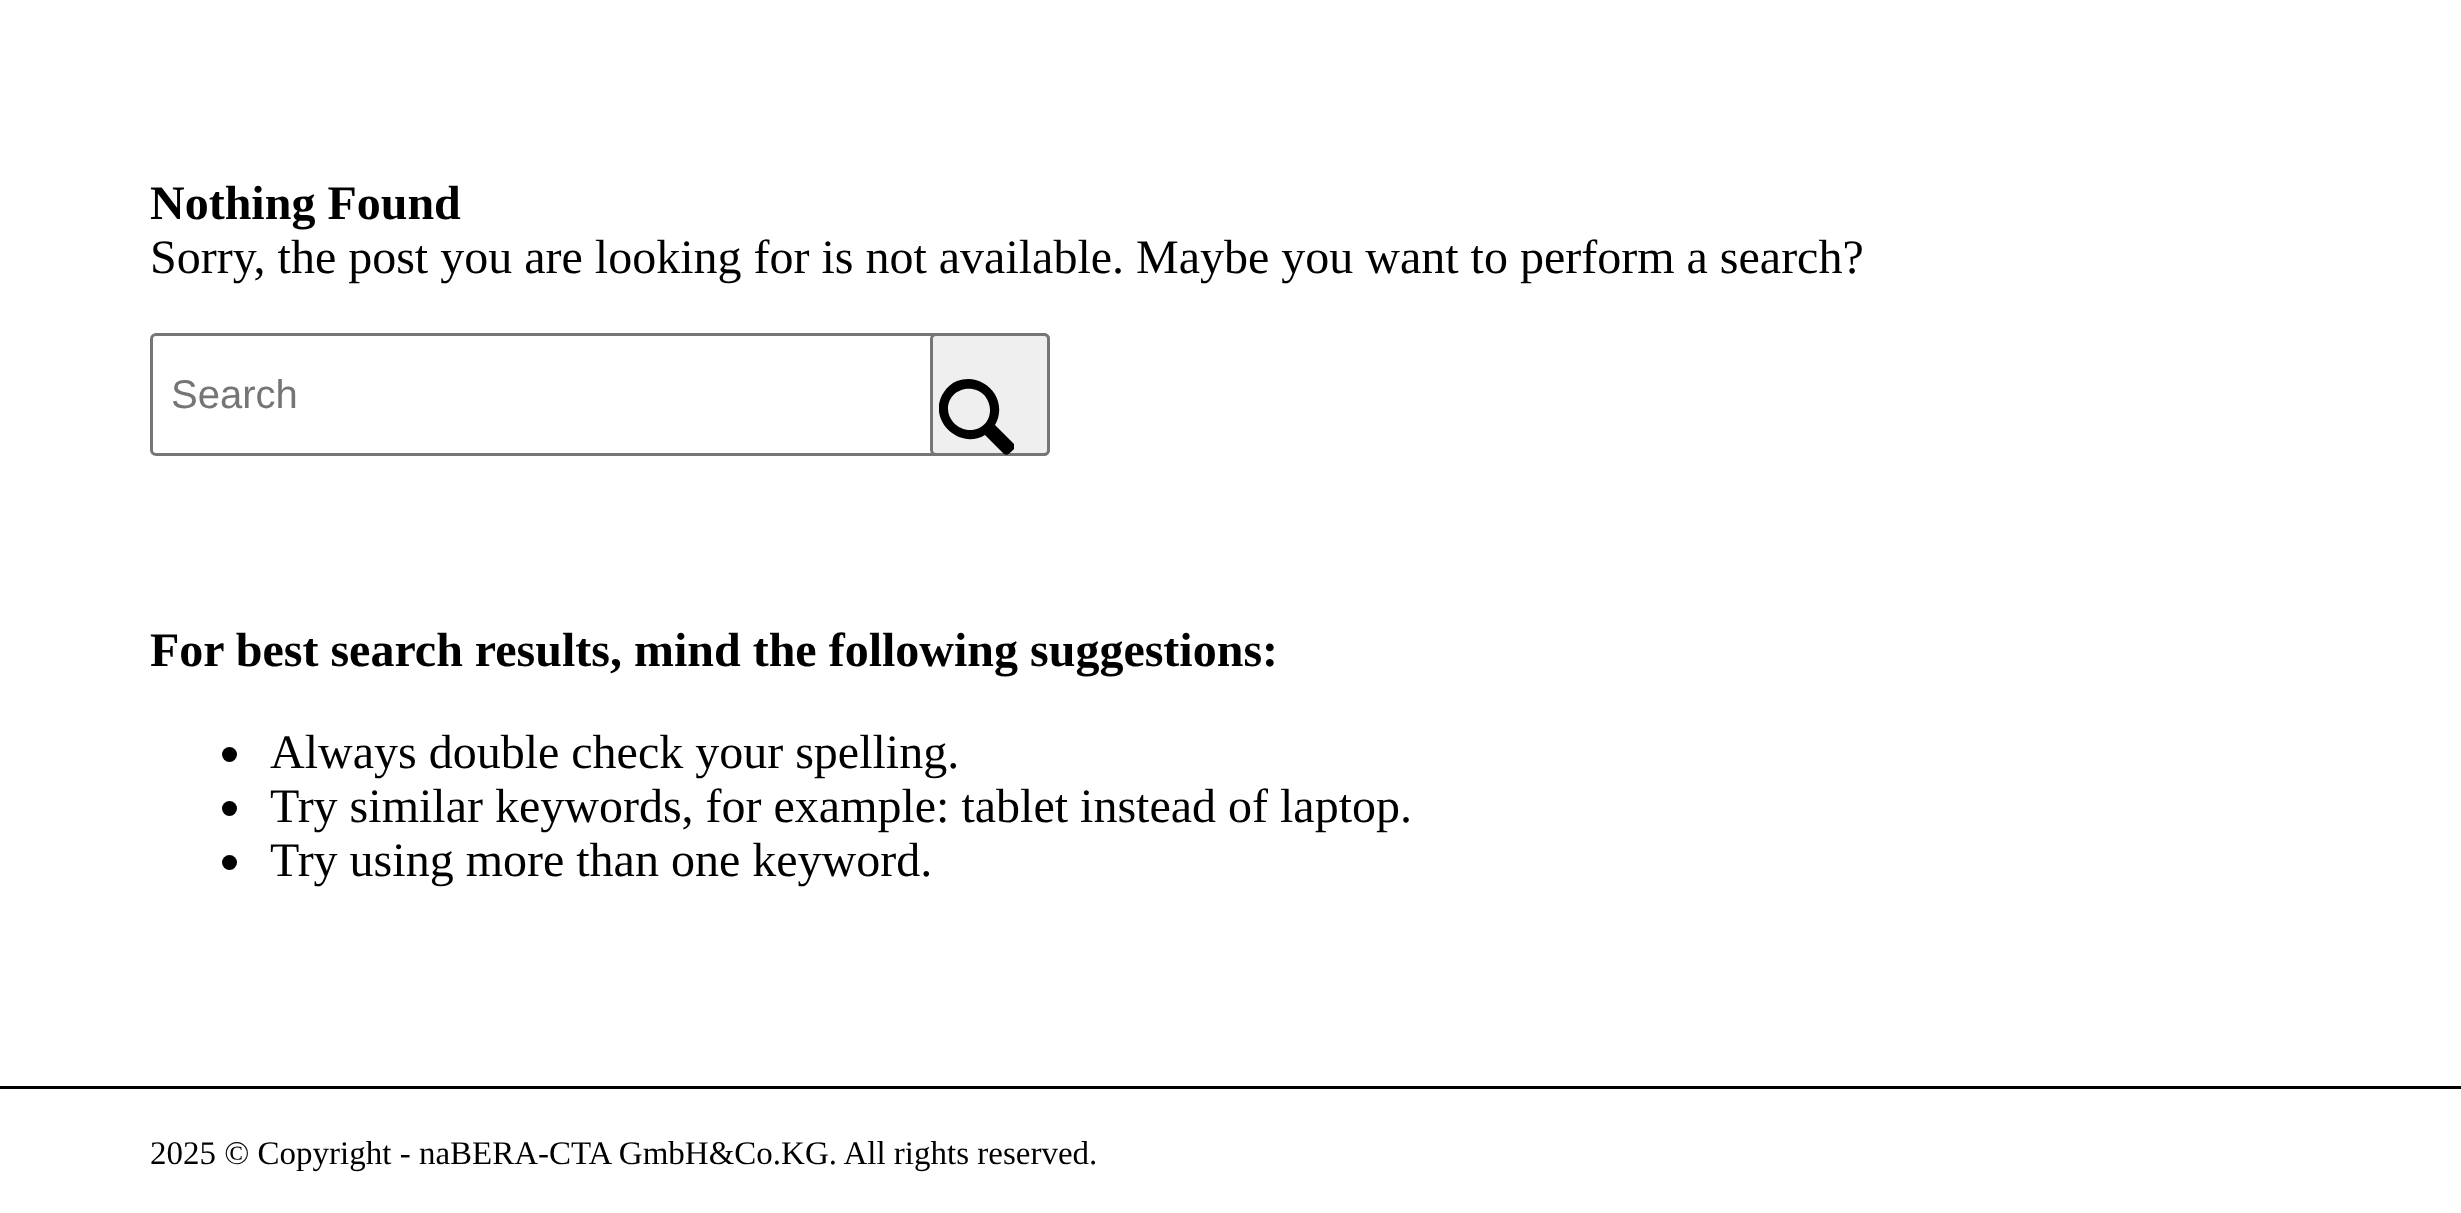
<!DOCTYPE html>
<meta charset="utf-8">
<style>body { margin: 0 } canvas { display: block }</style>
<canvas id="canvas" width="2461" height="1213"></canvas>
<script>
window.onload = function () {
	const canvas = document.getElementById("canvas");
	const ctx = canvas.getContext("2d");
	ctx.miterLimit = 4;
	ctx.fontKerning = "normal";
	function txt(s, x, y) {
		ctx.fillText(s, x, y);
	}
	function fill(x, y, w, h) {
		ctx.fillRect(x, y, w, h);
	}

	ctx.fillStyle = "#FFFFFF";
	fill(0, 0, 2461, 1213);
	ctx.beginPath();
	ctx.roundRect(151.5, 334.5, 897, 120, 4.5);
	ctx.strokeStyle = "#767676";
	ctx.lineWidth = 3;
	ctx.stroke();
	ctx.fillStyle = "#EFEFEF";
	ctx.beginPath();
	ctx.roundRect(931.5, 334.5, 117, 120, 4.5);
	ctx.fill();
	ctx.stroke();
	ctx.save();
	ctx.beginPath();
	ctx.rect(939, 369, 75, 96);
	ctx.clip();
	ctx.fillStyle = "#000000";
	ctx.beginPath();
	ctx.moveTo(1013, 443);
	ctx.bezierCurveTo(1015, 445, 1015, 447, 1014, 449);
	ctx.bezierCurveTo(1007, 456, 1006, 457, 1000, 450);
	ctx.lineTo(985, 435);
	ctx.bezierCurveTo(958, 451, 926, 418, 944, 392);
	ctx.bezierCurveTo(947, 387, 952, 383, 957, 381);
	ctx.bezierCurveTo(965, 378, 975, 378, 983, 383);
	ctx.bezierCurveTo(998, 391, 1004, 410, 995, 425);
	ctx.closePath();
	ctx.moveTo(948, 409);
	ctx.bezierCurveTo(948, 414, 950, 418, 953, 422);
	ctx.bezierCurveTo(966, 437, 990, 430, 990, 410);
	ctx.bezierCurveTo(990, 405, 988, 400, 985, 396);
	ctx.bezierCurveTo(973, 382, 948, 389, 948, 409);
	ctx.closePath();
	ctx.fill();
	ctx.restore();
	ctx.fillStyle = "#000000";
	ctx.beginPath();
	ctx.arc(229.5, 754.5, 7.5, 0, Math.PI * 2);
	ctx.fill();
	ctx.beginPath();
	ctx.arc(229.5, 808.5, 7.5, 0, Math.PI * 2);
	ctx.fill();
	ctx.beginPath();
	ctx.arc(229.5, 862.5, 7.5, 0, Math.PI * 2);
	ctx.fill();
	fill(0, 1086, 2461, 3);
	ctx.font = "bold 48px Liberation Serif";
	txt("Nothing Found", 150, 219);
	ctx.font = "48px Liberation Serif";
	txt("Sorry, the post you are looking for is not available. Maybe you want to perform a search?", 150, 273);
	ctx.font = "40px Liberation Sans";
	ctx.fillStyle = "#757575";
	txt("Search", 171, 408);
	ctx.font = "bold 48px Liberation Serif";
	ctx.fillStyle = "#000000";
	txt("For best search results, mind the following suggestions:", 150, 666);
	ctx.font = "48px Liberation Serif";
	txt("Always double check your spelling.", 270, 768);
	txt("Try similar keywords, for example: tablet instead of laptop.", 270, 822);
	txt("Try using more than one keyword.", 270, 876);
	ctx.font = "33px Liberation Serif";
	txt("2025 © Copyright - naBERA-CTA GmbH&Co.KG. All rights reserved.", 150, 1164);
};
</script>
